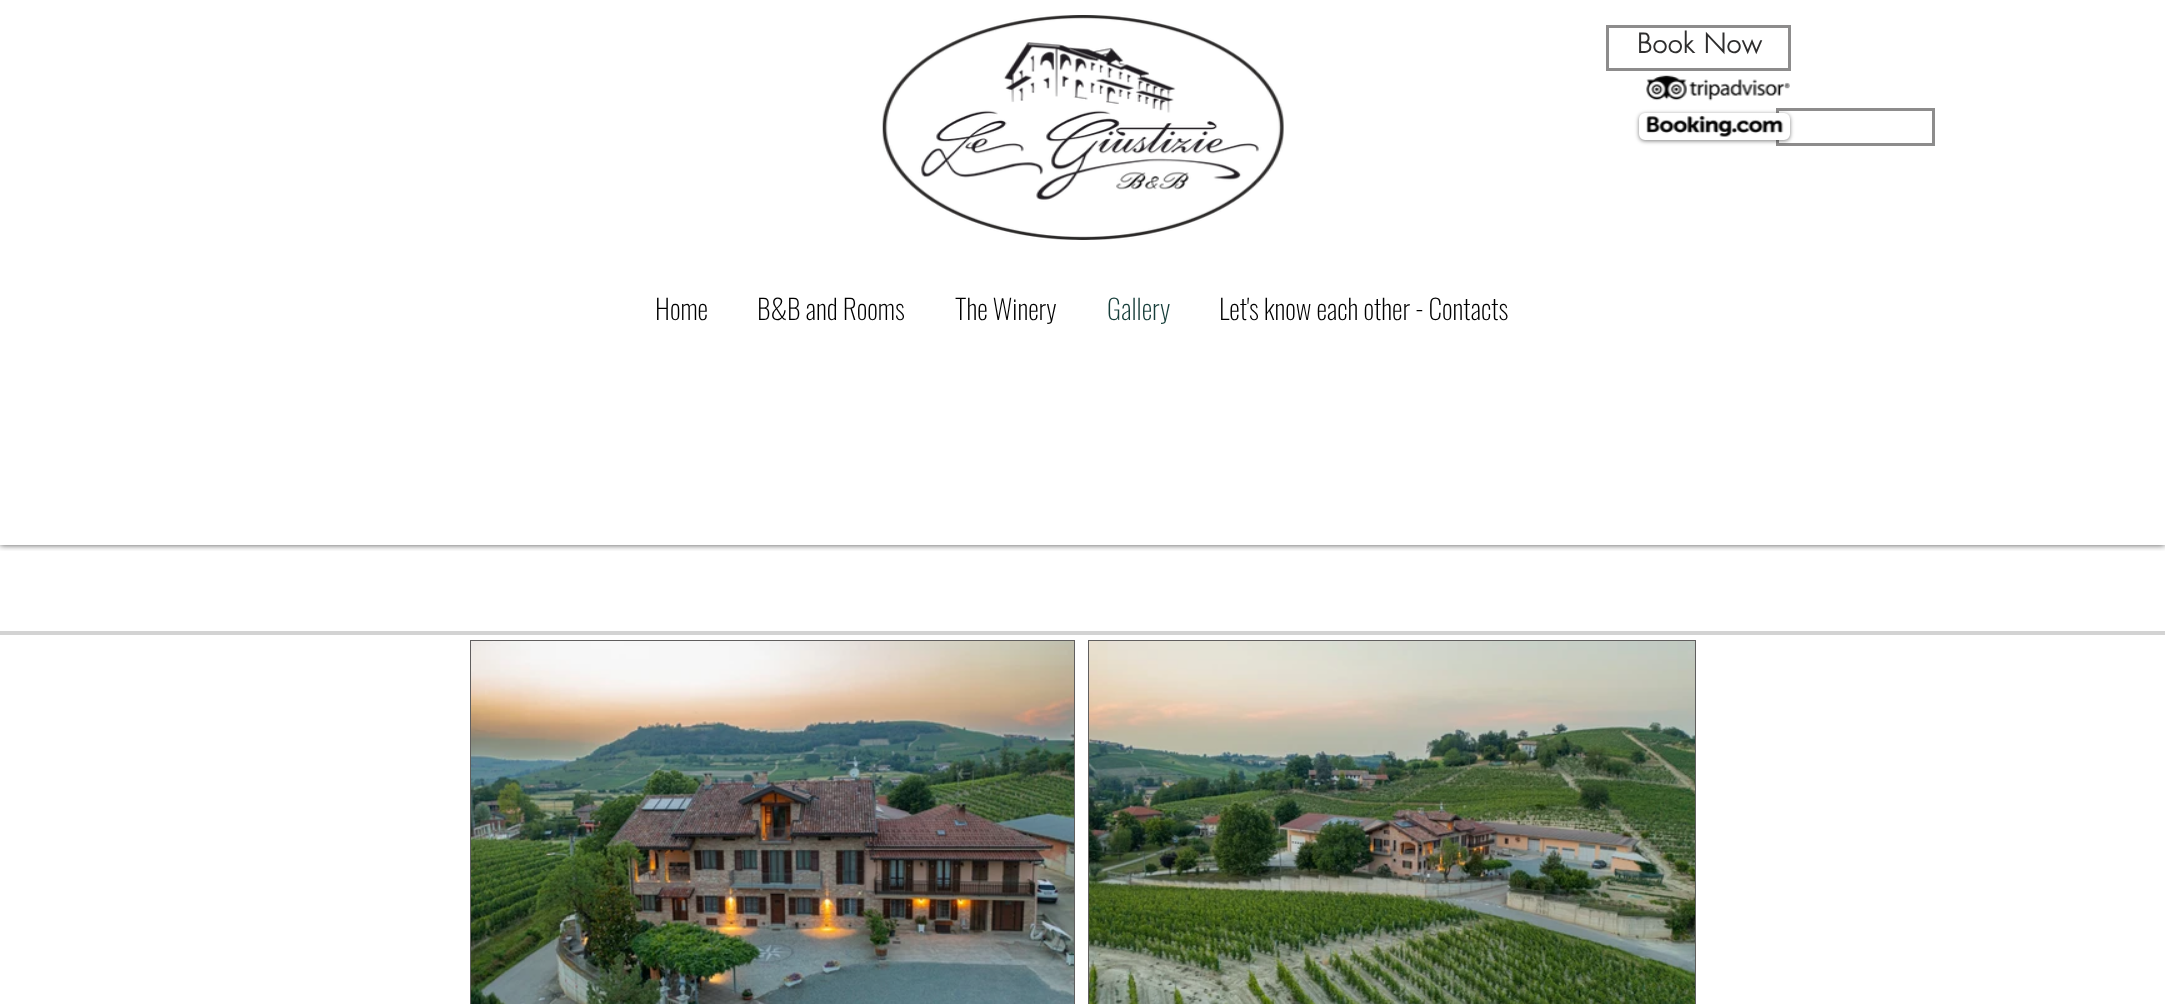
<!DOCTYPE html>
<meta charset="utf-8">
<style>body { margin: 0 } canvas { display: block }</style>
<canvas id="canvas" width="2165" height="1004"></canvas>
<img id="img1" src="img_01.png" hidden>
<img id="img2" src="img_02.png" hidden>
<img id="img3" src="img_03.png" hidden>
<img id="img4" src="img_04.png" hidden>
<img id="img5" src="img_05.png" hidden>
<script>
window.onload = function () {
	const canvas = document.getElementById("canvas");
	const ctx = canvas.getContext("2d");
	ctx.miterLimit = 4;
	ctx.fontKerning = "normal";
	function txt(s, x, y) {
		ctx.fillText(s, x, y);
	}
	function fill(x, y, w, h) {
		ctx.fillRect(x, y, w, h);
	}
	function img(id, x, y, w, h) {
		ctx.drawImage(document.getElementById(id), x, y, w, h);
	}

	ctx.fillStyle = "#FFFFFF";
	fill(0, 0, 2165, 1004);
	ctx.save();
	ctx.beginPath();
	ctx.rect(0, 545, 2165, 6);
	ctx.clip();
	ctx.fillStyle = "rgba(0, 0, 0, 0.7)";
	ctx.filter = "blur(3px)";
	ctx.beginPath();
	ctx.rect(0, 0, 2165, 545);
	ctx.fill();
	ctx.filter = "none";
	ctx.restore();
	ctx.strokeStyle = "#8D8C8C";
	ctx.lineWidth = 3;
	ctx.strokeRect(1607.5, 26.5, 182, 43);
	img("img1", 1646, 75, 144, 26);
	ctx.strokeRect(1777.5, 109.5, 156, 35);
	ctx.fillStyle = "rgba(0, 0, 0, 0.5)";
	ctx.filter = "blur(2px)";
	ctx.beginPath();
	ctx.roundRect(1639, 114, 151, 27, 6);
	ctx.fill();
	ctx.filter = "none";
	ctx.fillStyle = "#FFFFFF";
	ctx.beginPath();
	ctx.roundRect(1640.5, 114.5, 148, 24, 4.5);
	ctx.fill();
	ctx.strokeStyle = "#FFFFFF";
	ctx.stroke();
	img("img2", 1646, 115, 138, 22);
	img("img3", 882, 15, 402, 225);
	ctx.fillStyle = "#D3D3D3";
	fill(0, 631, 2165, 4);
	ctx.strokeStyle = "#605E5E";
	ctx.lineWidth = 1;
	ctx.strokeRect(470.5, 640.5, 604, 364);
	img("img4", 471, 641, 603, 363);
	ctx.strokeRect(1088.5, 640.5, 607, 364);
	img("img5", 1089, 641, 606, 363);
	ctx.letterSpacing = "0.75px";
	ctx.font = "bold 26.25px futura";
	ctx.fillStyle = "#2F2E2E";
	txt("Book Now", 1637, 53);
	ctx.letterSpacing = "0px";
	ctx.font = "200 27.5px Oswald";
	ctx.fillStyle = "#000000";
	txt("Home", 655, 320);
	txt("B&B and Rooms", 757, 320);
	txt("The Winery", 955, 320);
	ctx.fillStyle = "#163E3A";
	txt("Gallery", 1107, 320);
	ctx.fillStyle = "#000000";
	txt("Let's know each other - Contacts", 1219, 320);
};
</script>
